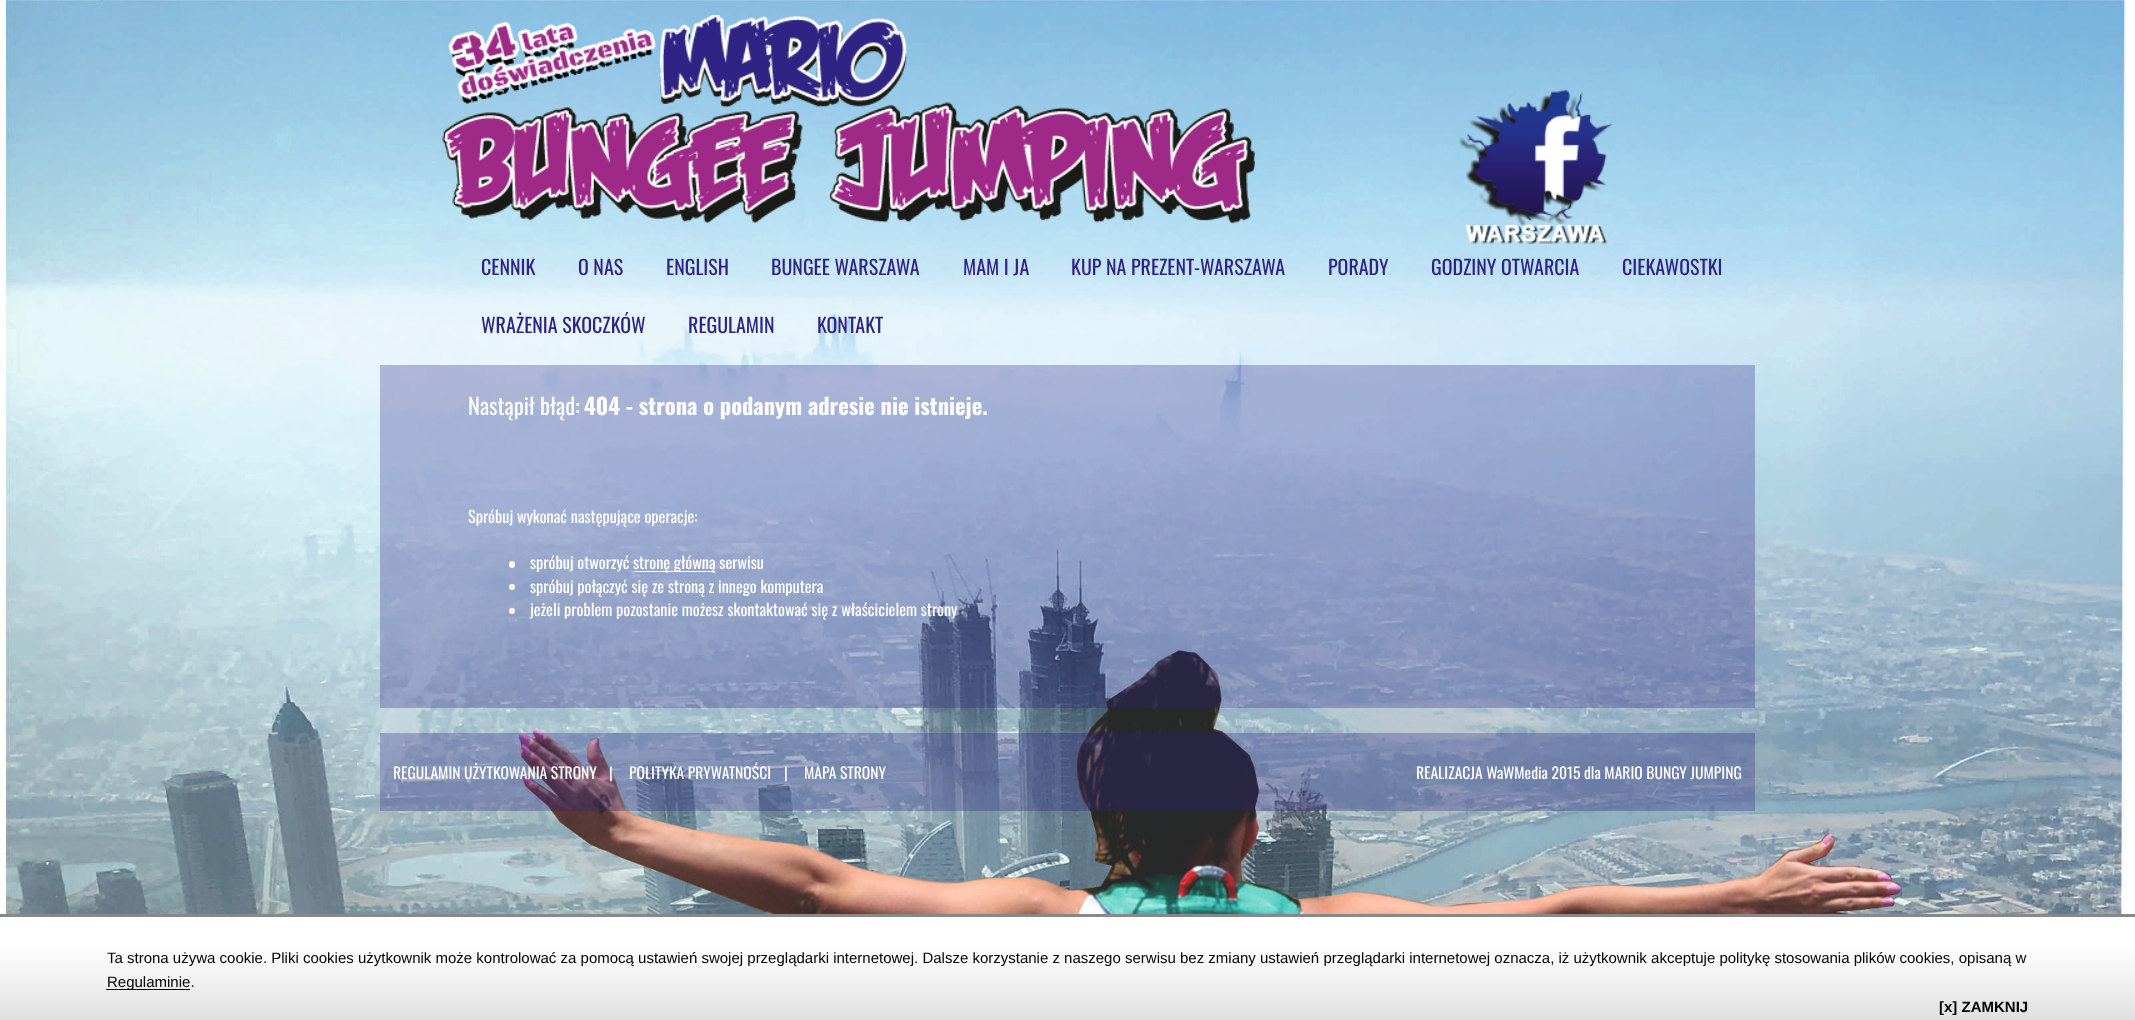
<!DOCTYPE html>
<meta charset="utf-8">
<style>body { margin: 0 } canvas { display: block }</style>
<canvas id="canvas" width="2135" height="1020"></canvas>
<img id="img1" src="img_01.png" hidden>
<img id="img2" src="img_02.png" hidden>
<img id="img3" src="img_03.png" hidden>
<script>
window.onload = function () {
	const canvas = document.getElementById("canvas");
	const ctx = canvas.getContext("2d");
	ctx.miterLimit = 4;
	ctx.fontKerning = "normal";
	function txt(s, x, y) {
		ctx.fillText(s, x, y);
	}
	function fill(x, y, w, h) {
		ctx.fillRect(x, y, w, h);
	}
	function round(x, y, w, h, r) {
		ctx.beginPath();
		ctx.roundRect(x, y, w, h, r);
		ctx.fill();
	}
	function img(id, x, y, w, h) {
		ctx.drawImage(document.getElementById(id), x, y, w, h);
	}
	let gradient;

	ctx.fillStyle = "#FFFFFF";
	fill(0, 0, 2135, 1020);
	img("img1", 5, 0, 2121, 914);
	img("img2", 442, 15, 813, 209);
	img("img3", 1459, 89, 154, 155);
	ctx.fillStyle = "rgba(47, 36, 131, 0.3)";
	fill(380, 365, 1375, 343);
	ctx.fillStyle = "#FFFFFF";
	round(509, 561, 6, 7, 3);
	fill(634, 571, 82, 1);
	ctx.beginPath();
	ctx.arc(512, 587, 3, 0, Math.PI * 2);
	ctx.fill();
	ctx.beginPath();
	ctx.arc(512, 611, 3, 0, Math.PI * 2);
	ctx.fill();
	ctx.fillStyle = "rgba(47, 36, 131, 0.3)";
	fill(380, 733, 1375, 78);
	gradient = ctx.createLinearGradient(0, 916, 0, 1020);
	gradient.addColorStop(0.28, "#FFFFFF");
	gradient.addColorStop(1, "#E0E0E0");
	ctx.fillStyle = gradient;
	fill(0, 951, 2135, 69);
	ctx.fillStyle = "#888888";
	fill(0, 914, 2135, 3);
	ctx.fillStyle = "#000000";
	fill(106, 989, 84, 1);
	ctx.font = "20px Oswald";
	ctx.fillStyle = "#2F2483";
	txt("CENNIK", 481, 275);
	txt("O NAS", 578, 275);
	txt("ENGLISH", 666, 275);
	txt("BUNGEE WARSZAWA", 771, 275);
	txt("MAM I JA", 963, 275);
	txt("KUP NA PREZENT-WARSZAWA", 1071, 275);
	txt("PORADY", 1328, 275);
	txt("GODZINY OTWARCIA", 1431, 275);
	txt("CIEKAWOSTKI", 1622, 275);
	txt("WRAŻENIA SKOCZKÓW", 481, 333);
	txt("REGULAMIN", 688, 333);
	txt("KONTAKT", 817, 333);
	ctx.font = "22.5px Oswald";
	ctx.fillStyle = "#FFFFFF";
	txt("Nastąpił błąd:", 468, 415);
	ctx.font = "bold 22.5px Oswald";
	txt("404 - strona o podanym adresie nie istnieje.", 584, 415);
	ctx.font = "16.25px Oswald";
	txt("Spróbuj wykonać następujące operacje:", 468, 523);
	txt("spróbuj otworzyć", 530, 569);
	txt("stronę główną serwisu", 633, 569);
	txt("spróbuj połączyć się ze stroną z innego komputera", 530, 593);
	txt("jeżeli problem pozostanie możesz skontaktować się z właścicielem strony", 530, 616);
	ctx.font = "15.6px Oswald";
	txt("REGULAMIN UŻYTKOWANIA STRONY", 393, 779);
	txt("|", 609, 779);
	txt("POLITYKA PRYWATNOŚCI", 629, 779);
	txt("|", 784, 779);
	txt("MAPA STRONY", 804, 779);
	txt("REALIZACJA WaWMedia 2015 dla MARIO BUNGY JUMPING", 1416, 779);
	ctx.font = "15px Liberation Sans";
	ctx.fillStyle = "#000000";
	txt("Ta strona używa cookie. Pliki cookies użytkownik może kontrolować za pomocą ustawień swojej przeglądarki internetowej. Dalsze korzystanie z naszego serwisu bez zmiany ustawień przeglądarki internetowej oznacza, iż użytkownik akceptuje politykę stosowania plików cookies, opisaną w", 107, 963);
	txt("Regulaminie.", 107, 987);
	ctx.font = "bold 15px Liberation Sans";
	txt("[x] ZAMKNIJ", 1939, 1012);
};
</script>
